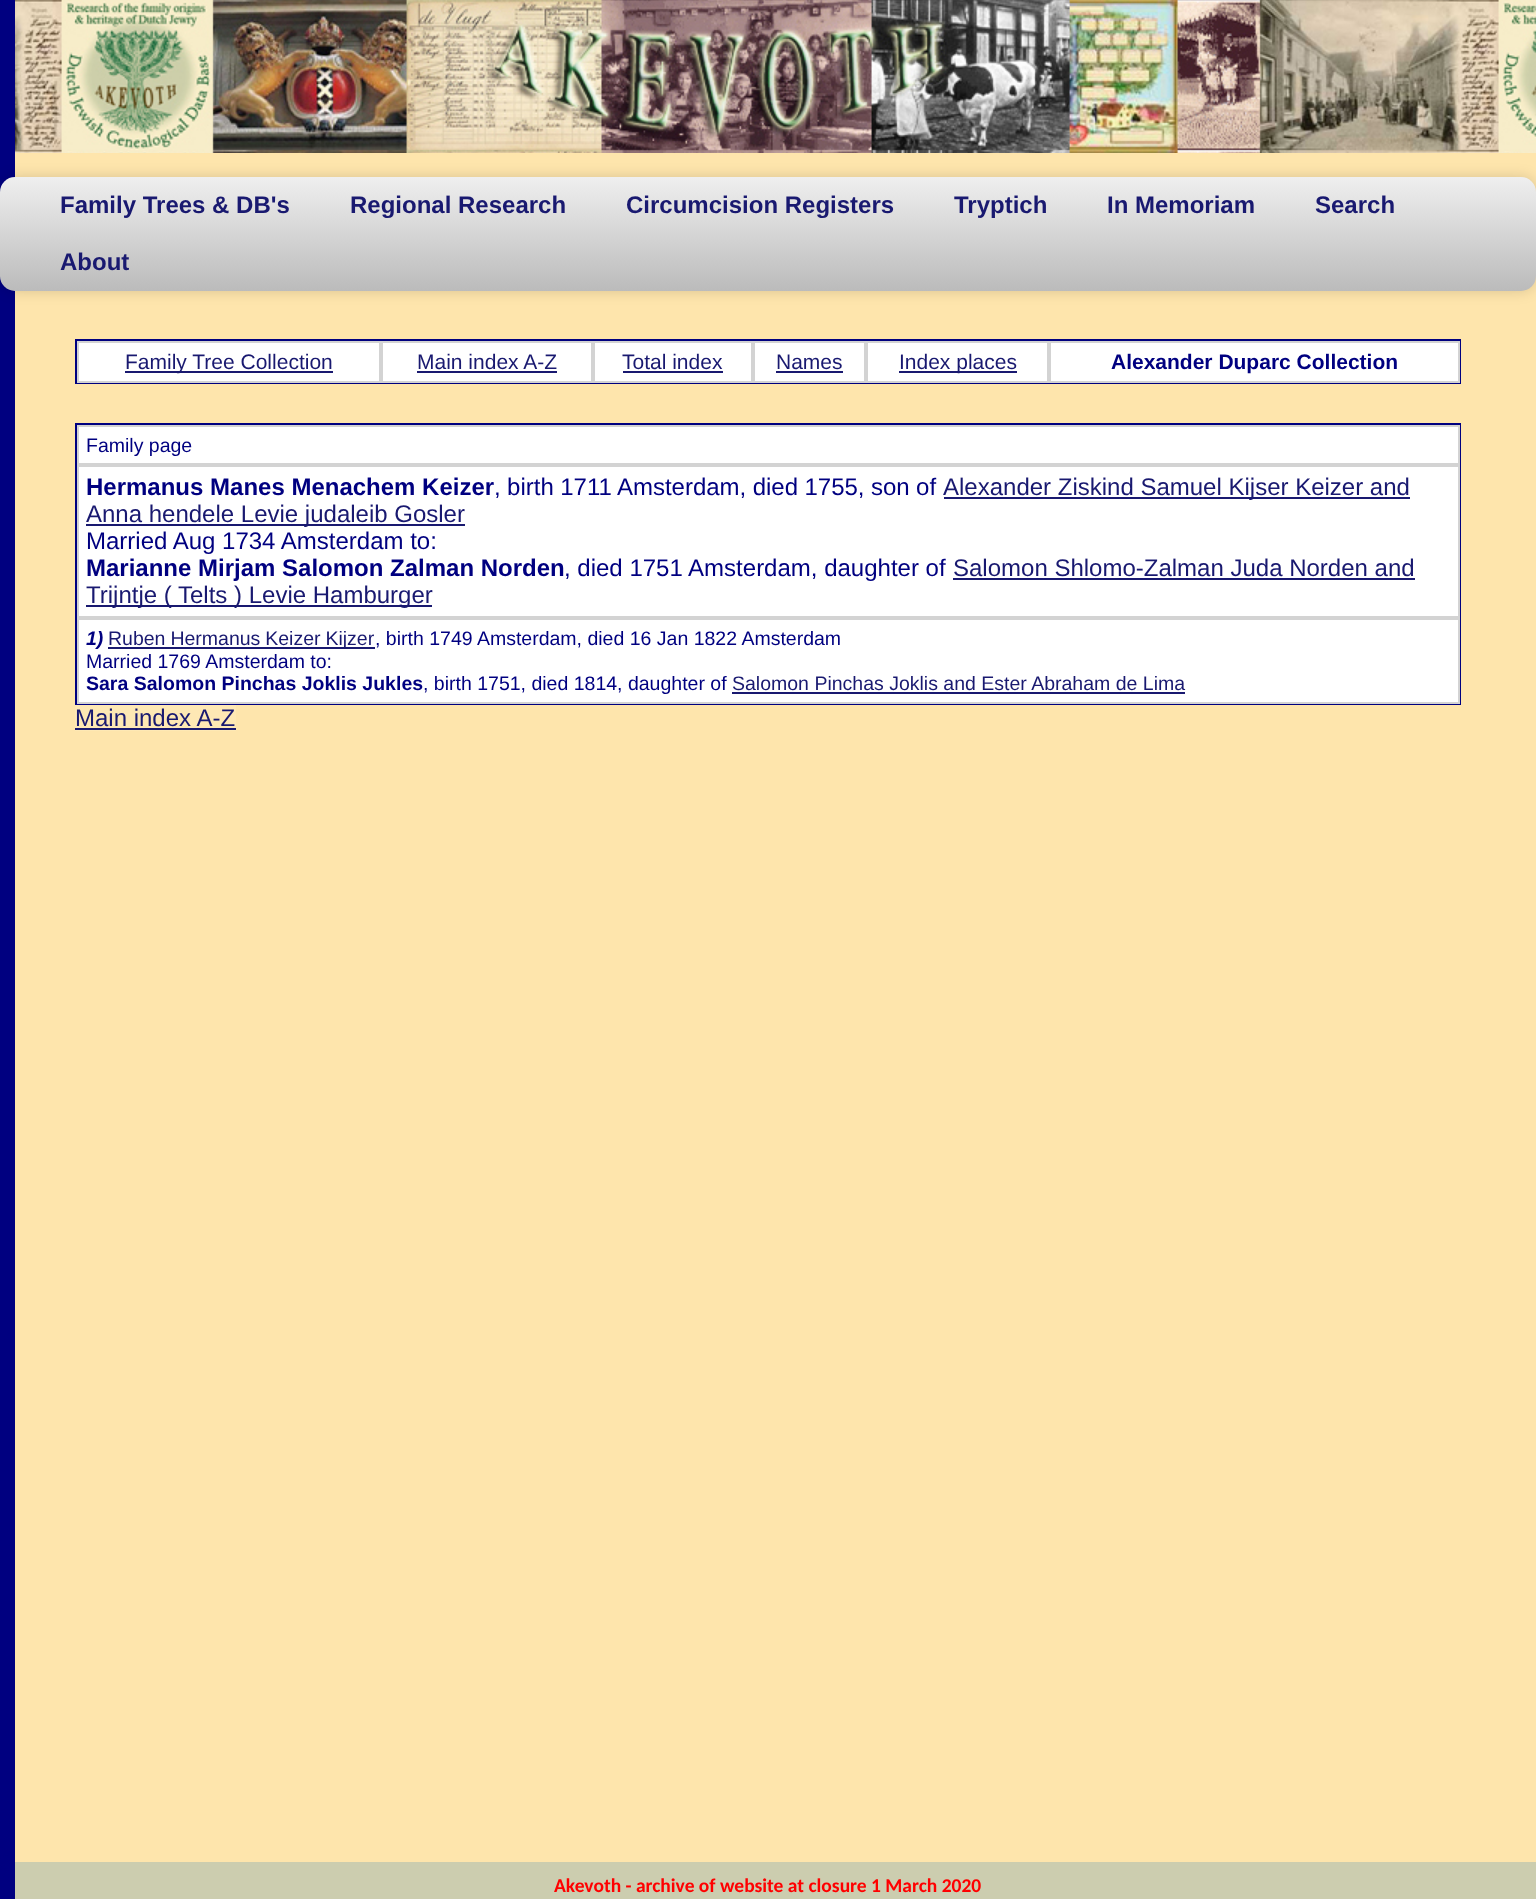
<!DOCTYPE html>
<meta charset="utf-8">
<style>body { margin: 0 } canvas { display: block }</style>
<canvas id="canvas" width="1536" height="1899"></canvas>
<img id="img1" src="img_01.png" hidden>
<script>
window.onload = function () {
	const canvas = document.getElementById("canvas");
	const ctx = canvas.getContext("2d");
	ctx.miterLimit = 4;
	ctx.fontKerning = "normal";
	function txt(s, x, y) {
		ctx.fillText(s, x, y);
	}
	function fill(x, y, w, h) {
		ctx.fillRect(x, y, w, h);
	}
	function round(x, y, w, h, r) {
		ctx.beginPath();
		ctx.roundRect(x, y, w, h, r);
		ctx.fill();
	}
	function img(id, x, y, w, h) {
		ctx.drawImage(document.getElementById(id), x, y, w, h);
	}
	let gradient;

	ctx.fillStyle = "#FEE5AC";
	fill(0, 0, 1536, 1899);
	img("img1", 15, 0, 1521, 153);
	ctx.fillStyle = "#000080";
	fill(0, 0, 15, 1899);
	ctx.fillStyle = "rgba(0, 0, 0, 0.15)";
	ctx.filter = "blur(7px)";
	ctx.beginPath();
	ctx.roundRect(0, 177, 1536, 114, 15);
	ctx.fill();
	ctx.filter = "none";
	gradient = ctx.createLinearGradient(768, 177, 768, 291);
	gradient.addColorStop(0, "#EFEFEF");
	gradient.addColorStop(1, "#BBBBBB");
	ctx.fillStyle = gradient;
	round(0, 177, 1536, 114, 15);
	ctx.fillStyle = "#FFFFFF";
	fill(79, 343, 1379, 38);
	ctx.strokeStyle = "#000080";
	ctx.lineWidth = 2;
	ctx.strokeRect(76, 340, 1384, 43);
	ctx.strokeStyle = "#D3D3D3";
	ctx.strokeRect(78, 342, 302, 40);
	ctx.fillStyle = "#191970";
	fill(125, 371, 208, 2);
	ctx.strokeRect(382, 342, 210, 40);
	fill(417, 371, 140, 2);
	ctx.strokeRect(594, 342, 158, 40);
	fill(623, 371, 100, 2);
	ctx.strokeRect(754, 342, 111, 40);
	fill(776, 371, 67, 2);
	ctx.strokeRect(867, 342, 181, 40);
	fill(899, 371, 118, 2);
	ctx.strokeRect(1050, 342, 409, 40);
	ctx.fillStyle = "#FFFFFF";
	fill(79, 427, 1379, 275);
	ctx.strokeStyle = "#000080";
	ctx.strokeRect(76, 424, 1384, 280);
	ctx.strokeStyle = "#D3D3D3";
	ctx.strokeRect(78, 426, 1381, 38);
	ctx.strokeRect(78, 466, 1381, 151);
	ctx.fillStyle = "#191970";
	fill(944, 497, 466, 2);
	fill(86, 524, 379, 2);
	fill(953, 578, 462, 2);
	fill(86, 605, 346, 2);
	ctx.strokeRect(78, 619, 1381, 84);
	fill(108, 647, 267, 2);
	fill(732, 692, 453, 2);
	ctx.fillStyle = "#FEE8B4";
	fill(75, 705, 161, 26);
	ctx.fillStyle = "#191970";
	fill(75, 728, 161, 2);
	ctx.fillStyle = "#CCCDAF";
	fill(15, 1862, 1521, 37);
	ctx.font = "bold 24px Liberation Sans";
	ctx.fillStyle = "#191970";
	txt("Family Trees & DB's", 60, 213);
	txt("Regional Research", 350, 213);
	txt("Circumcision Registers", 626, 213);
	txt("Tryptich", 954, 213);
	txt("In Memoriam", 1107, 213);
	txt("Search", 1315, 213);
	txt("About", 60, 270);
	ctx.font = "21px Liberation Sans";
	txt("Family Tree Collection", 125, 369);
	txt("Main index A-Z", 417, 369);
	txt("Total index", 622, 369);
	txt("Names", 776, 369);
	txt("Index places", 899, 369);
	ctx.font = "bold 21px Liberation Sans";
	ctx.fillStyle = "#000080";
	txt("Alexander Duparc Collection", 1111, 369);
	ctx.font = "19.5px Liberation Sans";
	txt("Family page", 86, 452);
	ctx.font = "bold 24px Liberation Sans";
	txt("Hermanus Manes Menachem Keizer", 86, 495);
	ctx.wordSpacing = "-0.25px";
	ctx.font = "24px Liberation Sans";
	txt(", birth 1711 Amsterdam, died 1755, son of", 494, 495);
	ctx.wordSpacing = "0px";
	ctx.fillStyle = "#191970";
	txt("Alexander Ziskind Samuel Kijser Keizer and", 943, 495);
	txt("Anna hendele Levie judaleib Gosler", 86, 522);
	ctx.fillStyle = "#000080";
	txt("Married Aug 1734 Amsterdam to:", 86, 549);
	ctx.font = "bold 24px Liberation Sans";
	txt("Marianne Mirjam Salomon Zalman Norden", 86, 576);
	ctx.font = "24px Liberation Sans";
	txt(", died 1751 Amsterdam, daughter of", 564, 576);
	ctx.fillStyle = "#191970";
	txt("Salomon Shlomo-Zalman Juda Norden and", 953, 576);
	txt("Trijntje ( Telts ) Levie Hamburger", 86, 603);
	ctx.font = "italic bold 19.5px Liberation Sans";
	ctx.fillStyle = "#000080";
	txt("1)", 86, 645);
	ctx.wordSpacing = "-0.5px";
	ctx.font = "19.5px Liberation Sans";
	ctx.fillStyle = "#191970";
	txt("Ruben Hermanus Keizer Kijzer", 108, 645);
	ctx.wordSpacing = "0px";
	ctx.fillStyle = "#000080";
	txt(", birth 1749 Amsterdam, died 16 Jan 1822 Amsterdam", 375, 645);
	txt("Married 1769 Amsterdam to:", 86, 668);
	ctx.font = "bold 19.5px Liberation Sans";
	txt("Sara Salomon Pinchas Joklis Jukles", 86, 690);
	ctx.font = "19.5px Liberation Sans";
	txt(", birth 1751, died 1814, daughter of", 423, 690);
	ctx.fillStyle = "#191970";
	txt("Salomon Pinchas Joklis and Ester Abraham de Lima", 732, 690);
	ctx.font = "24px Liberation Sans";
	txt("Main index A-Z", 75, 726);
	ctx.font = "bold 19.5px Carlito";
	ctx.fillStyle = "#FF0000";
	txt("Akevoth - archive of website at closure 1 March 2020", 554, 1892);
};
</script>
